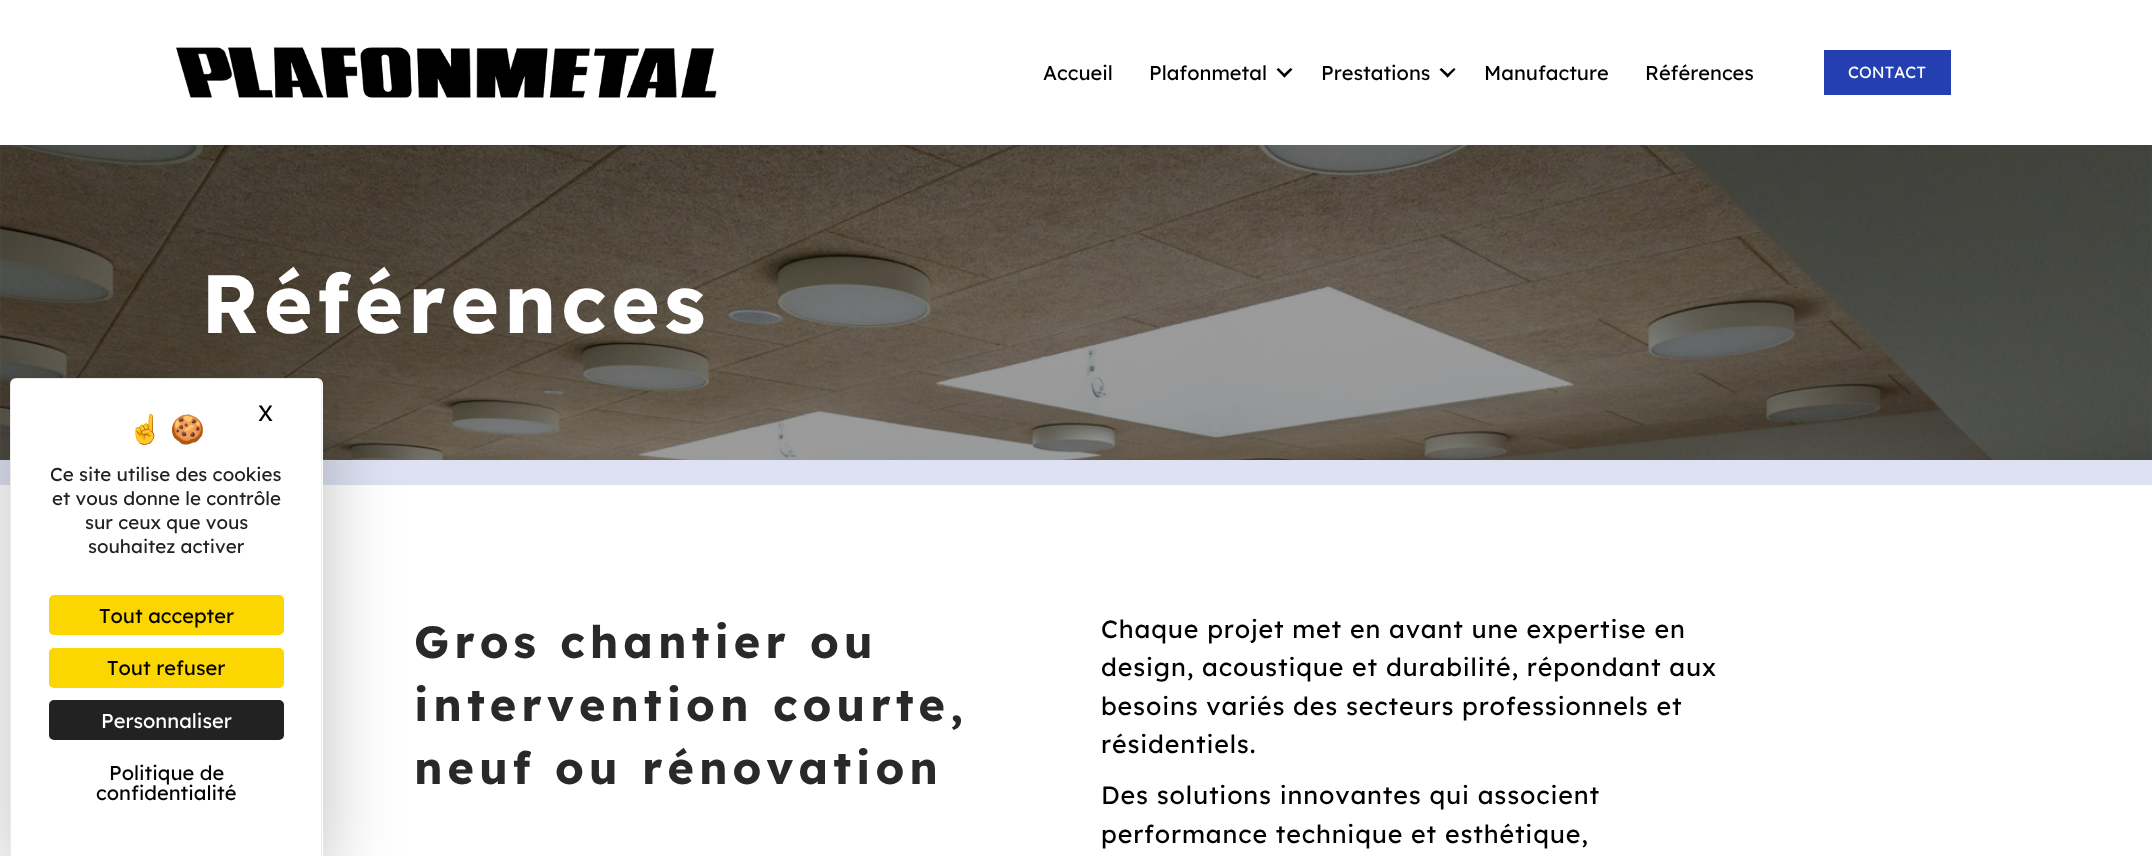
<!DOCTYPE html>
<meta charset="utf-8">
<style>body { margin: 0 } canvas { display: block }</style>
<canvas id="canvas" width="2152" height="856"></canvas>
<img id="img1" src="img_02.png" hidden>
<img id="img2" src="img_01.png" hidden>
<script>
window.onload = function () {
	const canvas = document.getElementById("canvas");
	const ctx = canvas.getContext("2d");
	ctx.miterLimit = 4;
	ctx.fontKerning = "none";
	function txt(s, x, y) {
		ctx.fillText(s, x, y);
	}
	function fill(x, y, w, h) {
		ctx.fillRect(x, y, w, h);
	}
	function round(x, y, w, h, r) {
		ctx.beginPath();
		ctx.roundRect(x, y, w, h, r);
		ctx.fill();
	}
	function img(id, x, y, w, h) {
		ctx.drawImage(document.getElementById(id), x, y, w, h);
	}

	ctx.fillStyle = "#FFFFFF";
	fill(0, 0, 2152, 856);
	img("img1", 0, 145, 2152, 315);
	ctx.fillStyle = "#DDE1F2";
	fill(0, 460, 2152, 25);
	ctx.fillStyle = "rgba(0, 0, 0, 0.25)";
	ctx.filter = "blur(37.5px)";
	ctx.beginPath();
	ctx.roundRect(10, 403, 313, 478, 6);
	ctx.fill();
	ctx.filter = "none";
	ctx.fillStyle = "#FFFFFF";
	ctx.beginPath();
	ctx.roundRect(10, 378, 313, 478, [6, 6, 0, 0]);
	ctx.fill();
	ctx.fillStyle = "rgba(0, 0, 0, 0.08)";
	ctx.beginPath();
	ctx.moveTo(16, 378);
	ctx.lineTo(316, 378);
	ctx.bezierCurveTo(320, 378, 322, 380, 322, 384);
	ctx.lineTo(322, 856);
	ctx.lineTo(10, 856);
	ctx.lineTo(10, 384);
	ctx.bezierCurveTo(10, 380, 13, 378, 16, 378);
	ctx.closePath();
	ctx.moveTo(16, 379);
	ctx.lineTo(316, 379);
	ctx.bezierCurveTo(319, 379, 321, 381, 321, 384);
	ctx.lineTo(321, 856);
	ctx.lineTo(11, 856);
	ctx.lineTo(11, 384);
	ctx.bezierCurveTo(11, 381, 13, 379, 16, 379);
	ctx.closePath();
	ctx.fill("evenodd");
	ctx.fillStyle = "#FBD600";
	round(49, 595, 235, 40, 5);
	round(49, 648, 235, 40, 5);
	ctx.fillStyle = "#222222";
	round(49, 700, 235, 40, 5);
	img("img2", 176, 47, 541, 51);
	ctx.fillStyle = "#000000";
	ctx.beginPath();
	ctx.moveTo(1290.5, 68);
	ctx.lineTo(1292.5, 69.5);
	ctx.lineTo(1284.5, 77.5);
	ctx.lineTo(1282.5, 75.5);
	ctx.closePath();
	ctx.fill();
	ctx.beginPath();
	ctx.moveTo(1278.5, 68);
	ctx.lineTo(1286, 75.5);
	ctx.lineTo(1284.5, 77.5);
	ctx.lineTo(1276.5, 69.5);
	ctx.closePath();
	ctx.fill();
	ctx.beginPath();
	ctx.moveTo(1454, 68);
	ctx.lineTo(1455.5, 69.5);
	ctx.lineTo(1447.5, 77.5);
	ctx.lineTo(1446, 75.5);
	ctx.closePath();
	ctx.fill();
	ctx.beginPath();
	ctx.moveTo(1441.5, 68);
	ctx.lineTo(1449.5, 75.5);
	ctx.lineTo(1447.5, 77.5);
	ctx.lineTo(1439.5, 69.5);
	ctx.closePath();
	ctx.fill();
	ctx.fillStyle = "#243FB0";
	fill(1824, 50, 127, 45);
	ctx.font = "28px Noto Color Emoji";
	ctx.fillStyle = "#222222";
	txt("☝️", 128, 439);
	txt("🍪", 170, 439);
	ctx.font = "22px Lexend";
	ctx.fillStyle = "#000000";
	txt("X", 258, 421);
	ctx.font = "18.75px Lexend";
	ctx.fillStyle = "#222222";
	txt("Ce site utilise des cookies", 50, 481);
	txt("et vous donne le contrôle", 52, 505);
	txt("sur ceux que vous", 85, 529);
	txt("souhaitez activer", 88, 553);
	ctx.font = "20px Lexend";
	ctx.fillStyle = "#000000";
	txt("Tout accepter", 99, 623);
	txt("Tout refuser", 107, 675);
	ctx.fillStyle = "#FFFFFF";
	txt("Personnaliser", 101, 728);
	ctx.fillStyle = "#000000";
	txt("Politique de", 109, 780);
	txt("confidentialité", 96, 800);
	txt("Accueil", 1043, 80);
	txt("Plafonmetal", 1149, 80);
	txt("Prestations", 1321, 80);
	txt("Manufacture", 1484, 80);
	txt("Références", 1645, 80);
	ctx.font = "16.25px Lexend";
	ctx.fillStyle = "#FFFFFF";
	txt("CONTACT", 1848, 78);
	ctx.letterSpacing = "5px";
	ctx.font = "bold 82.5px Lexend";
	txt("Références", 201, 333);
	ctx.font = "bold 45px Lexend";
	ctx.fillStyle = "#292929";
	txt("Gros chantier ou", 414, 658);
	txt("intervention courte,", 414, 721);
	txt("neuf ou rénovation", 414, 784);
	ctx.letterSpacing = "0.85px";
	ctx.font = "25px Lexend";
	ctx.fillStyle = "#000000";
	txt("Chaque projet met en avant une expertise en", 1101, 638);
	txt("design, acoustique et durabilité, répondant aux", 1101, 676);
	txt("besoins variés des secteurs professionnels et", 1101, 715);
	txt("résidentiels.", 1101, 753);
	txt("Des solutions innovantes qui associent", 1101, 804);
	txt("performance technique et esthétique,", 1101, 843);
};
</script>
